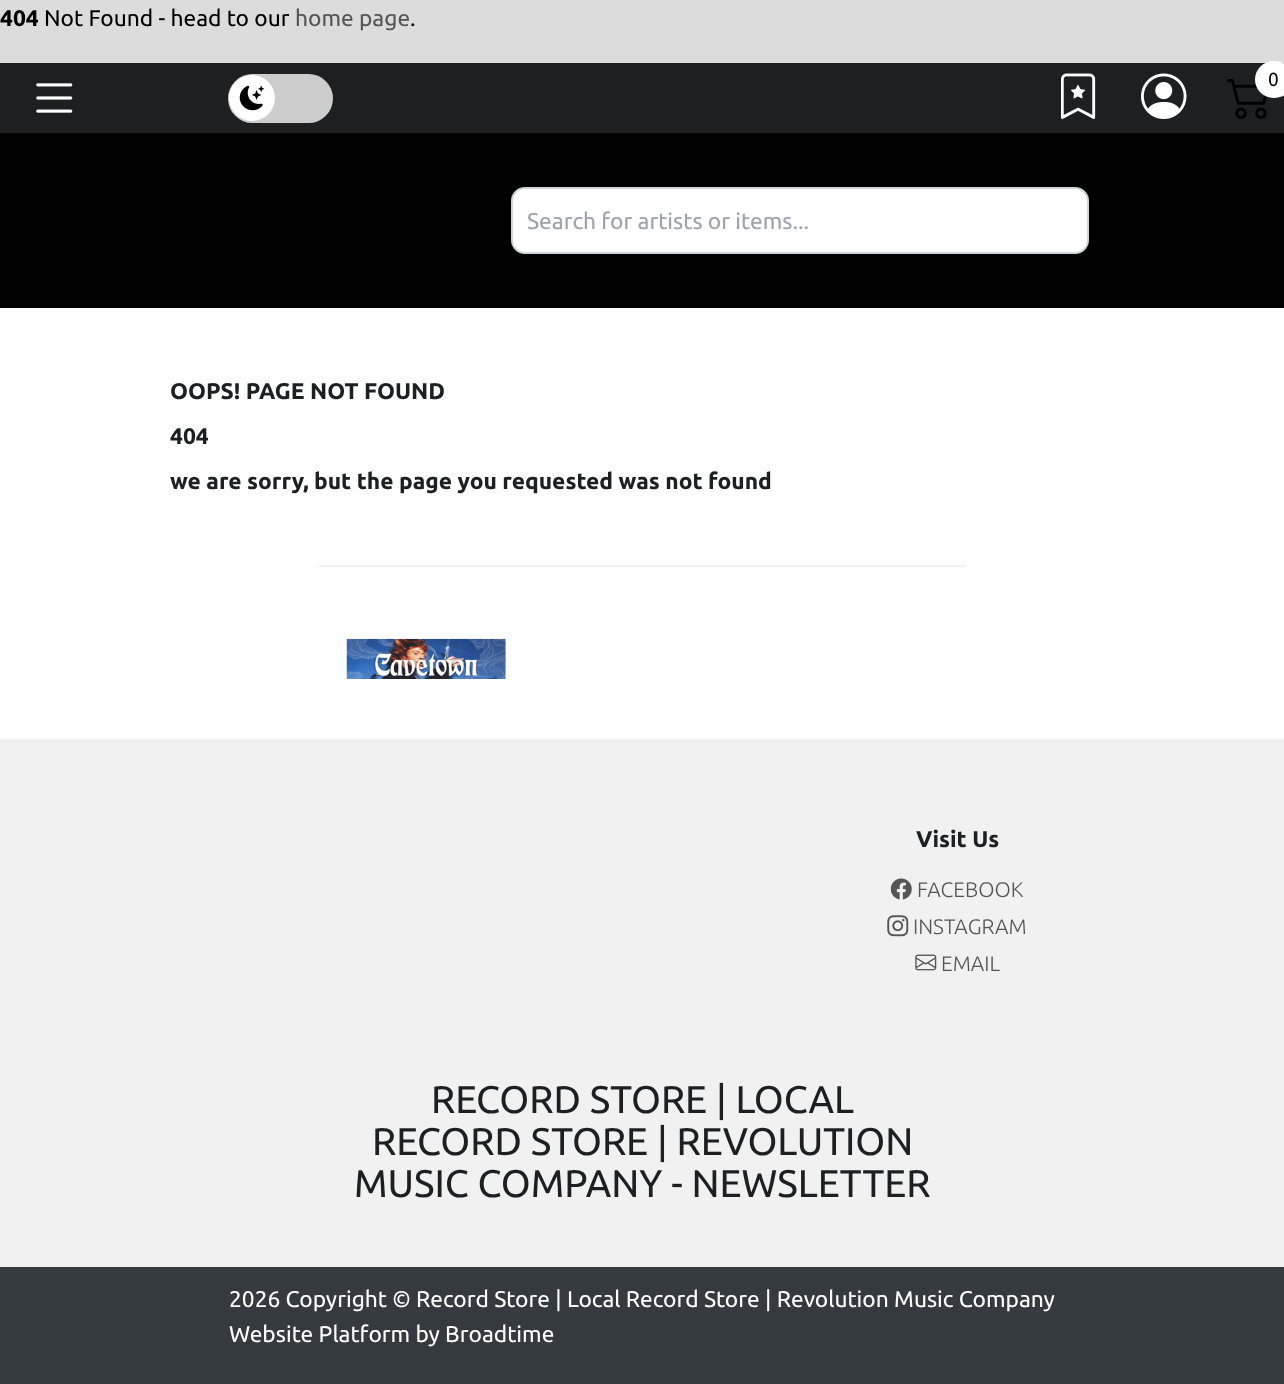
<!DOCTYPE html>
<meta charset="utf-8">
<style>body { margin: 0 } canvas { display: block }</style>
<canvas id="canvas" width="1284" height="1384"></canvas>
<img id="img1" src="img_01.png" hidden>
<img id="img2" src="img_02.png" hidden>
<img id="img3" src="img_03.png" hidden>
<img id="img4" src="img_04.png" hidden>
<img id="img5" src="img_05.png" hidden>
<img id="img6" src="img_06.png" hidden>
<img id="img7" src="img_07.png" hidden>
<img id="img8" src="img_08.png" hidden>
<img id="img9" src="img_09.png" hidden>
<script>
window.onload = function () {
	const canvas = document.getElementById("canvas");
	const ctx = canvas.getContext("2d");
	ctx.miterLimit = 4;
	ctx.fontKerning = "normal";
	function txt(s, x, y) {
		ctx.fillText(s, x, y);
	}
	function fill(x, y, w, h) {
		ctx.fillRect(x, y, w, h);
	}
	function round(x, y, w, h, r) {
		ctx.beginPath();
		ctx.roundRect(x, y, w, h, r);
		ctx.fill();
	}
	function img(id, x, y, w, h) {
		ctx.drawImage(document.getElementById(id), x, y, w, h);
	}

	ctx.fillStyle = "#DCDCDC";
	fill(0, 0, 1284, 1384);
	ctx.fillStyle = "#FFFFFF";
	fill(0, 308, 1284, 431);
	ctx.fillStyle = "#1D1F20";
	fill(0, 63, 1284, 70);
	img("img1", 36, 83, 37, 30);
	ctx.fillStyle = "#CCCCCC";
	round(228, 74, 105, 49, 24.5);
	ctx.fillStyle = "#FFFFFF";
	ctx.beginPath();
	ctx.arc(252, 98, 23, 0, Math.PI * 2);
	ctx.fill();
	img("img2", 239, 85, 26, 26);
	img("img3", 1061, 73, 35, 46);
	img("img4", 1141, 73, 46, 46);
	img("img5", 1226, 79, 41, 40);
	round(1255, 61, 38, 37, 18.5);
	ctx.fillStyle = "#000000";
	fill(0, 133, 1284, 175);
	ctx.fillStyle = "#FFFFFF";
	ctx.beginPath();
	ctx.roundRect(512, 188, 576, 65, 13);
	ctx.fill();
	ctx.strokeStyle = "#D1D5DB";
	ctx.lineWidth = 2;
	ctx.stroke();
	ctx.fillStyle = "#F1F1F1";
	fill(319, 565, 647, 2);
	img("img6", 346, 638, 160, 41);
	fill(0, 739, 1284, 528);
	img("img7", 890, 878, 22, 22);
	img("img8", 887, 915, 22, 22);
	img("img9", 915, 954, 22, 17);
	ctx.fillStyle = "#343A40";
	fill(0, 1267, 1284, 117);
	ctx.font = "bold 22.75px Ubuntu";
	ctx.fillStyle = "#000000";
	txt("404", 0, 26);
	ctx.font = "22.75px Ubuntu";
	txt("Not Found - head to our", 44, 26);
	ctx.fillStyle = "#555555";
	txt("home page", 295, 26);
	ctx.fillStyle = "#000000";
	txt(".", 410, 26);
	ctx.font = "19px Ubuntu";
	txt("0", 1268, 86);
	ctx.font = "22.75px Ubuntu";
	ctx.fillStyle = "#9CA3AF";
	txt("Search for artists or items...", 527, 229);
	ctx.font = "bold 22.75px Ubuntu";
	ctx.fillStyle = "#1D1F20";
	txt("OOPS! PAGE NOT FOUND", 170, 399);
	txt("404", 170, 444);
	txt("we are sorry, but the page you requested was not found", 170, 489);
	txt("Visit Us", 916, 847);
	ctx.font = "300 21px Ubuntu";
	ctx.fillStyle = "#555555";
	txt("FACEBOOK", 917, 897);
	txt("INSTAGRAM", 913, 934);
	txt("EMAIL", 941, 971);
	ctx.font = "38.5px Ubuntu";
	ctx.fillStyle = "#1D1F20";
	txt("RECORD STORE | LOCAL", 431, 1113);
	txt("RECORD STORE | REVOLUTION", 372, 1155);
	txt("MUSIC COMPANY - NEWSLETTER", 354, 1197);
	ctx.font = "22.75px Ubuntu";
	ctx.fillStyle = "#FFFFFF";
	txt("2026 Copyright © Record Store | Local Record Store | Revolution Music Company", 229, 1307);
	txt("Website Platform by Broadtime", 229, 1342);
};
</script>
